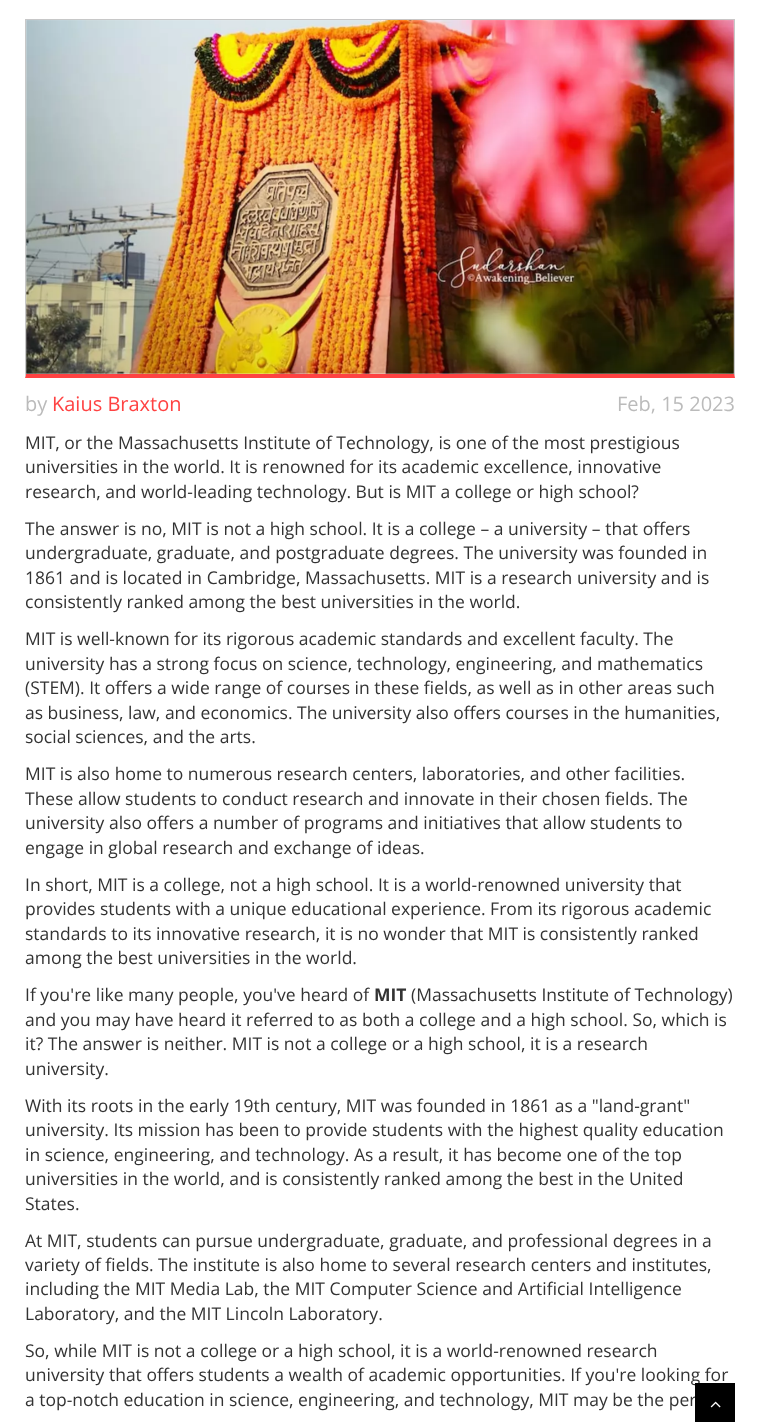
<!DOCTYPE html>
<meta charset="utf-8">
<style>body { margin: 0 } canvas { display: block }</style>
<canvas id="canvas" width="759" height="1422"></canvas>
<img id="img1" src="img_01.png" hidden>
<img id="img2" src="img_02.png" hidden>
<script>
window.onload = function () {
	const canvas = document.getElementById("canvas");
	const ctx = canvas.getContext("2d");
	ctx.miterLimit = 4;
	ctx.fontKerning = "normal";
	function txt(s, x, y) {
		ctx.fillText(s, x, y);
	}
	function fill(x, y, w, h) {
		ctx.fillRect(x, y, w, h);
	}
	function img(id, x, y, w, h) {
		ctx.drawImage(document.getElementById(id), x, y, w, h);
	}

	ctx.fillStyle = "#FFFFFF";
	fill(0, 0, 759, 1422);
	ctx.fillStyle = "#C8C8C8";
	fill(25, 19, 710, 1);
	ctx.beginPath();
	ctx.moveTo(735, 19);
	ctx.lineTo(735, 378);
	ctx.lineTo(734, 374);
	ctx.lineTo(734, 20);
	ctx.closePath();
	ctx.fill();
	ctx.fillStyle = "#FF4242";
	ctx.beginPath();
	ctx.moveTo(735, 378);
	ctx.lineTo(25, 378);
	ctx.lineTo(26, 374);
	ctx.lineTo(734, 374);
	ctx.closePath();
	ctx.fill();
	ctx.fillStyle = "#C8C8C8";
	ctx.beginPath();
	ctx.moveTo(25, 378);
	ctx.lineTo(25, 19);
	ctx.lineTo(26, 20);
	ctx.lineTo(26, 374);
	ctx.closePath();
	ctx.fill();
	img("img1", 26, 19, 708, 355);
	ctx.font = "20px Open Sans";
	ctx.fillStyle = "#BBBBBB";
	txt("by", 25, 411);
	ctx.fillStyle = "#FF4242";
	txt("Kaius Braxton", 52, 411);
	ctx.fillStyle = "#BBBBBB";
	txt("Feb, 15 2023", 617, 411);
	ctx.font = "17.5px Open Sans";
	ctx.fillStyle = "#333333";
	txt("MIT, or the Massachusetts Institute of Technology, is one of the most prestigious", 25, 449);
	txt("universities in the world. It is renowned for its academic excellence, innovative", 25, 473);
	txt("research, and world-leading technology. But is MIT a college or high school?", 25, 498);
	txt("The answer is no, MIT is not a high school. It is a college – a university – that offers", 25, 535);
	txt("undergraduate, graduate, and postgraduate degrees. The university was founded in", 25, 559);
	txt("1861 and is located in Cambridge, Massachusetts. MIT is a research university and is", 25, 584);
	txt("consistently ranked among the best universities in the world.", 25, 608);
	txt("MIT is well-known for its rigorous academic standards and excellent faculty. The", 25, 645);
	txt("university has a strong focus on science, technology, engineering, and mathematics", 25, 670);
	txt("(STEM). It offers a wide range of courses in these fields, as well as in other areas such", 25, 694);
	txt("as business, law, and economics. The university also offers courses in the humanities,", 25, 719);
	txt("social sciences, and the arts.", 25, 743);
	txt("MIT is also home to numerous research centers, laboratories, and other facilities.", 25, 780);
	txt("These allow students to conduct research and innovate in their chosen fields. The", 25, 805);
	txt("university also offers a number of programs and initiatives that allow students to", 25, 829);
	txt("engage in global research and exchange of ideas.", 25, 854);
	txt("In short, MIT is a college, not a high school. It is a world-renowned university that", 25, 891);
	txt("provides students with a unique educational experience. From its rigorous academic", 25, 915);
	txt("standards to its innovative research, it is no wonder that MIT is consistently ranked", 25, 940);
	txt("among the best universities in the world.", 25, 964);
	txt("If you're like many people, you've heard of", 25, 1001);
	ctx.font = "bold 17.5px Open Sans";
	txt("MIT", 374, 1001);
	ctx.font = "17.5px Open Sans";
	txt("(Massachusetts Institute of Technology)", 411, 1001);
	txt("and you may have heard it referred to as both a college and a high school. So, which is", 25, 1026);
	txt("it? The answer is neither. MIT is not a college or a high school, it is a research", 25, 1050);
	txt("university.", 25, 1075);
	txt("With its roots in the early 19th century, MIT was founded in 1861 as a \"land-grant\"", 25, 1112);
	txt("university. Its mission has been to provide students with the highest quality education", 25, 1136);
	txt("in science, engineering, and technology. As a result, it has become one of the top", 25, 1161);
	txt("universities in the world, and is consistently ranked among the best in the United", 25, 1185);
	txt("States.", 25, 1210);
	txt("At MIT, students can pursue undergraduate, graduate, and professional degrees in a", 25, 1247);
	txt("variety of fields. The institute is also home to several research centers and institutes,", 25, 1271);
	txt("including the MIT Media Lab, the MIT Computer Science and Artificial Intelligence", 25, 1295);
	txt("Laboratory, and the MIT Lincoln Laboratory.", 25, 1320);
	txt("So, while MIT is not a college or a high school, it is a world-renowned research", 25, 1357);
	txt("university that offers students a wealth of academic opportunities. If you're looking for", 25, 1381);
	txt("a top-notch education in science, engineering, and technology, MIT may be the per", 25, 1406);
	ctx.fillStyle = "#000000";
	fill(695, 1383, 40, 39);
	img("img2", 710, 1401, 11, 7);
};
</script>
